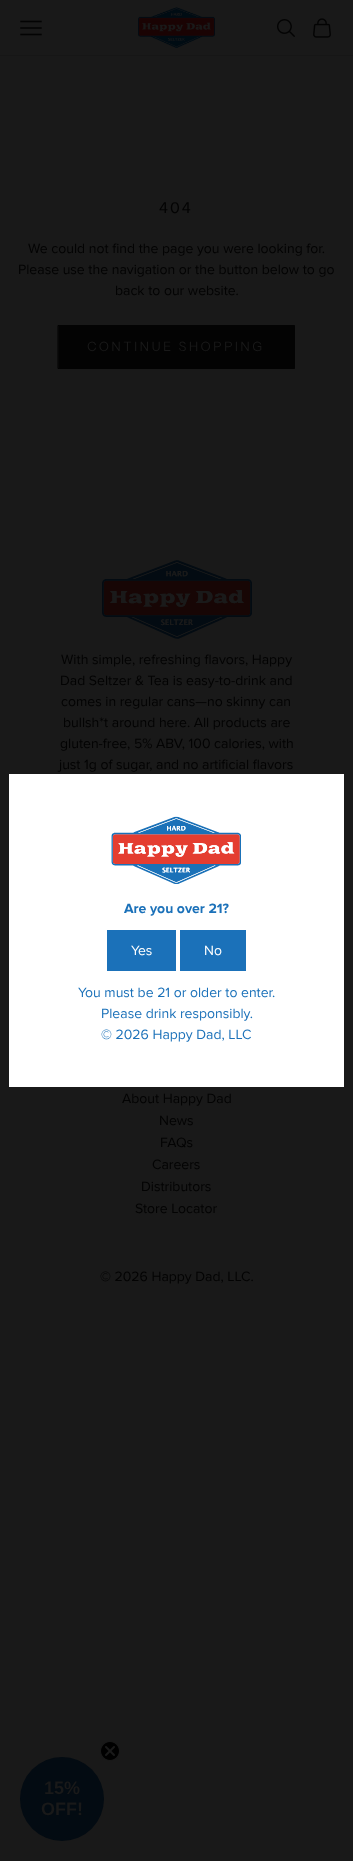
<!DOCTYPE html>
<meta charset="utf-8">
<style>body { margin: 0 } canvas { display: block }</style>
<canvas id="canvas" width="353" height="1861"></canvas>
<img id="img1" src="img_01.png" hidden>
<img id="img2" src="img_02.png" hidden>
<img id="img3" src="img_03.png" hidden>
<img id="img4" src="img_04.png" hidden>
<img id="img5" src="img_05.png" hidden>
<img id="img6" src="img_06.png" hidden>
<script>
window.onload = function () {
	const canvas = document.getElementById("canvas");
	const ctx = canvas.getContext("2d");
	ctx.miterLimit = 4;
	ctx.fontKerning = "normal";
	function txt(s, x, y) {
		ctx.fillText(s, x, y);
	}
	function fill(x, y, w, h) {
		ctx.fillRect(x, y, w, h);
	}
	function img(id, x, y, w, h) {
		ctx.drawImage(document.getElementById(id), x, y, w, h);
	}

	ctx.fillStyle = "#191919";
	fill(0, 0, 353, 1861);
	ctx.fillStyle = "#161616";
	fill(0, 55, 353, 1);
	ctx.beginPath();
	ctx.moveTo(21, 34.5);
	ctx.lineTo(41, 34.5);
	ctx.moveTo(21, 28);
	ctx.lineTo(41, 28);
	ctx.moveTo(21, 21.5);
	ctx.lineTo(41, 21.5);
	ctx.strokeStyle = "#030303";
	ctx.lineWidth = 1.4;
	ctx.lineCap = "square";
	ctx.stroke();
	img("img1", 138, 7, 77, 41);
	img("img2", 277, 19, 18, 18);
	img("img3", 313, 18, 18, 20);
	ctx.fillStyle = "#030303";
	ctx.beginPath();
	ctx.rect(58.5, 325.5, 236, 43);
	ctx.fill();
	ctx.lineWidth = 1;
	ctx.stroke();
	img("img4", 102, 560, 150, 79);
	ctx.fillStyle = "#FFFFFF";
	fill(9, 774, 335, 313);
	img("img5", 111, 816, 130, 68);
	ctx.fillStyle = "#1B71B9";
	fill(107, 930, 69, 41);
	fill(180, 930, 66, 41);
	ctx.fillStyle = "#030B12";
	ctx.beginPath();
	ctx.arc(62, 1799, 42, 0, Math.PI * 2);
	ctx.fill();
	img("img6", 100, 1741, 20, 20);
	ctx.letterSpacing = "2px";
	ctx.font = "16px Proxima Nova";
	ctx.fillStyle = "#030303";
	txt("404", 159, 213);
	ctx.letterSpacing = "0px";
	ctx.font = "14px Proxima Nova";
	txt("We could not find the page you were looking for.", 28, 253);
	txt("Please use the navigation or the button below to go", 18, 274);
	txt("back to our website.", 115, 295);
	ctx.letterSpacing = "2.3px";
	ctx.font = "13px Instrument Sans";
	ctx.fillStyle = "#191919";
	txt("CONTINUE SHOPPING", 87, 351);
	ctx.letterSpacing = "0px";
	ctx.font = "14px Proxima Nova";
	ctx.fillStyle = "#030303";
	txt("With simple, refreshing flavors, Happy", 61, 664);
	txt("Dad Seltzer & Tea is easy-to-drink and", 60, 685);
	txt("comes in regular cans—no skinny can", 61, 706);
	txt("bullsh*t around here. All products are", 63, 727);
	txt("gluten-free, 5% ABV, 100 calories, with", 60, 748);
	txt("just 1g of sugar, and no artificial flavors", 59, 769);
	txt("About Happy Dad", 122, 1103);
	txt("News", 159, 1125);
	txt("FAQs", 160, 1147);
	txt("Careers", 152, 1169);
	txt("Distributors", 141, 1191);
	txt("Store Locator", 135, 1213);
	txt("© 2026 Happy Dad, LLC.", 100, 1281);
	ctx.font = "bold 14px Proxima Nova";
	ctx.fillStyle = "#1B71B9";
	txt("Are you over 21?", 124, 913);
	ctx.font = "14px Proxima Nova";
	ctx.fillStyle = "#FFFFFF";
	txt("Yes", 131, 955);
	txt("No", 204, 955);
	ctx.fillStyle = "#1B71B9";
	txt("You must be 21 or older to enter.", 78, 997);
	txt("Please drink responsibly.", 101, 1018);
	txt("© 2026 Happy Dad, LLC", 101, 1039);
	ctx.font = "bold 18px Liberation Sans";
	ctx.fillStyle = "#191919";
	txt("15%", 44, 1794);
	txt("OFF!", 41, 1815);
};
</script>
